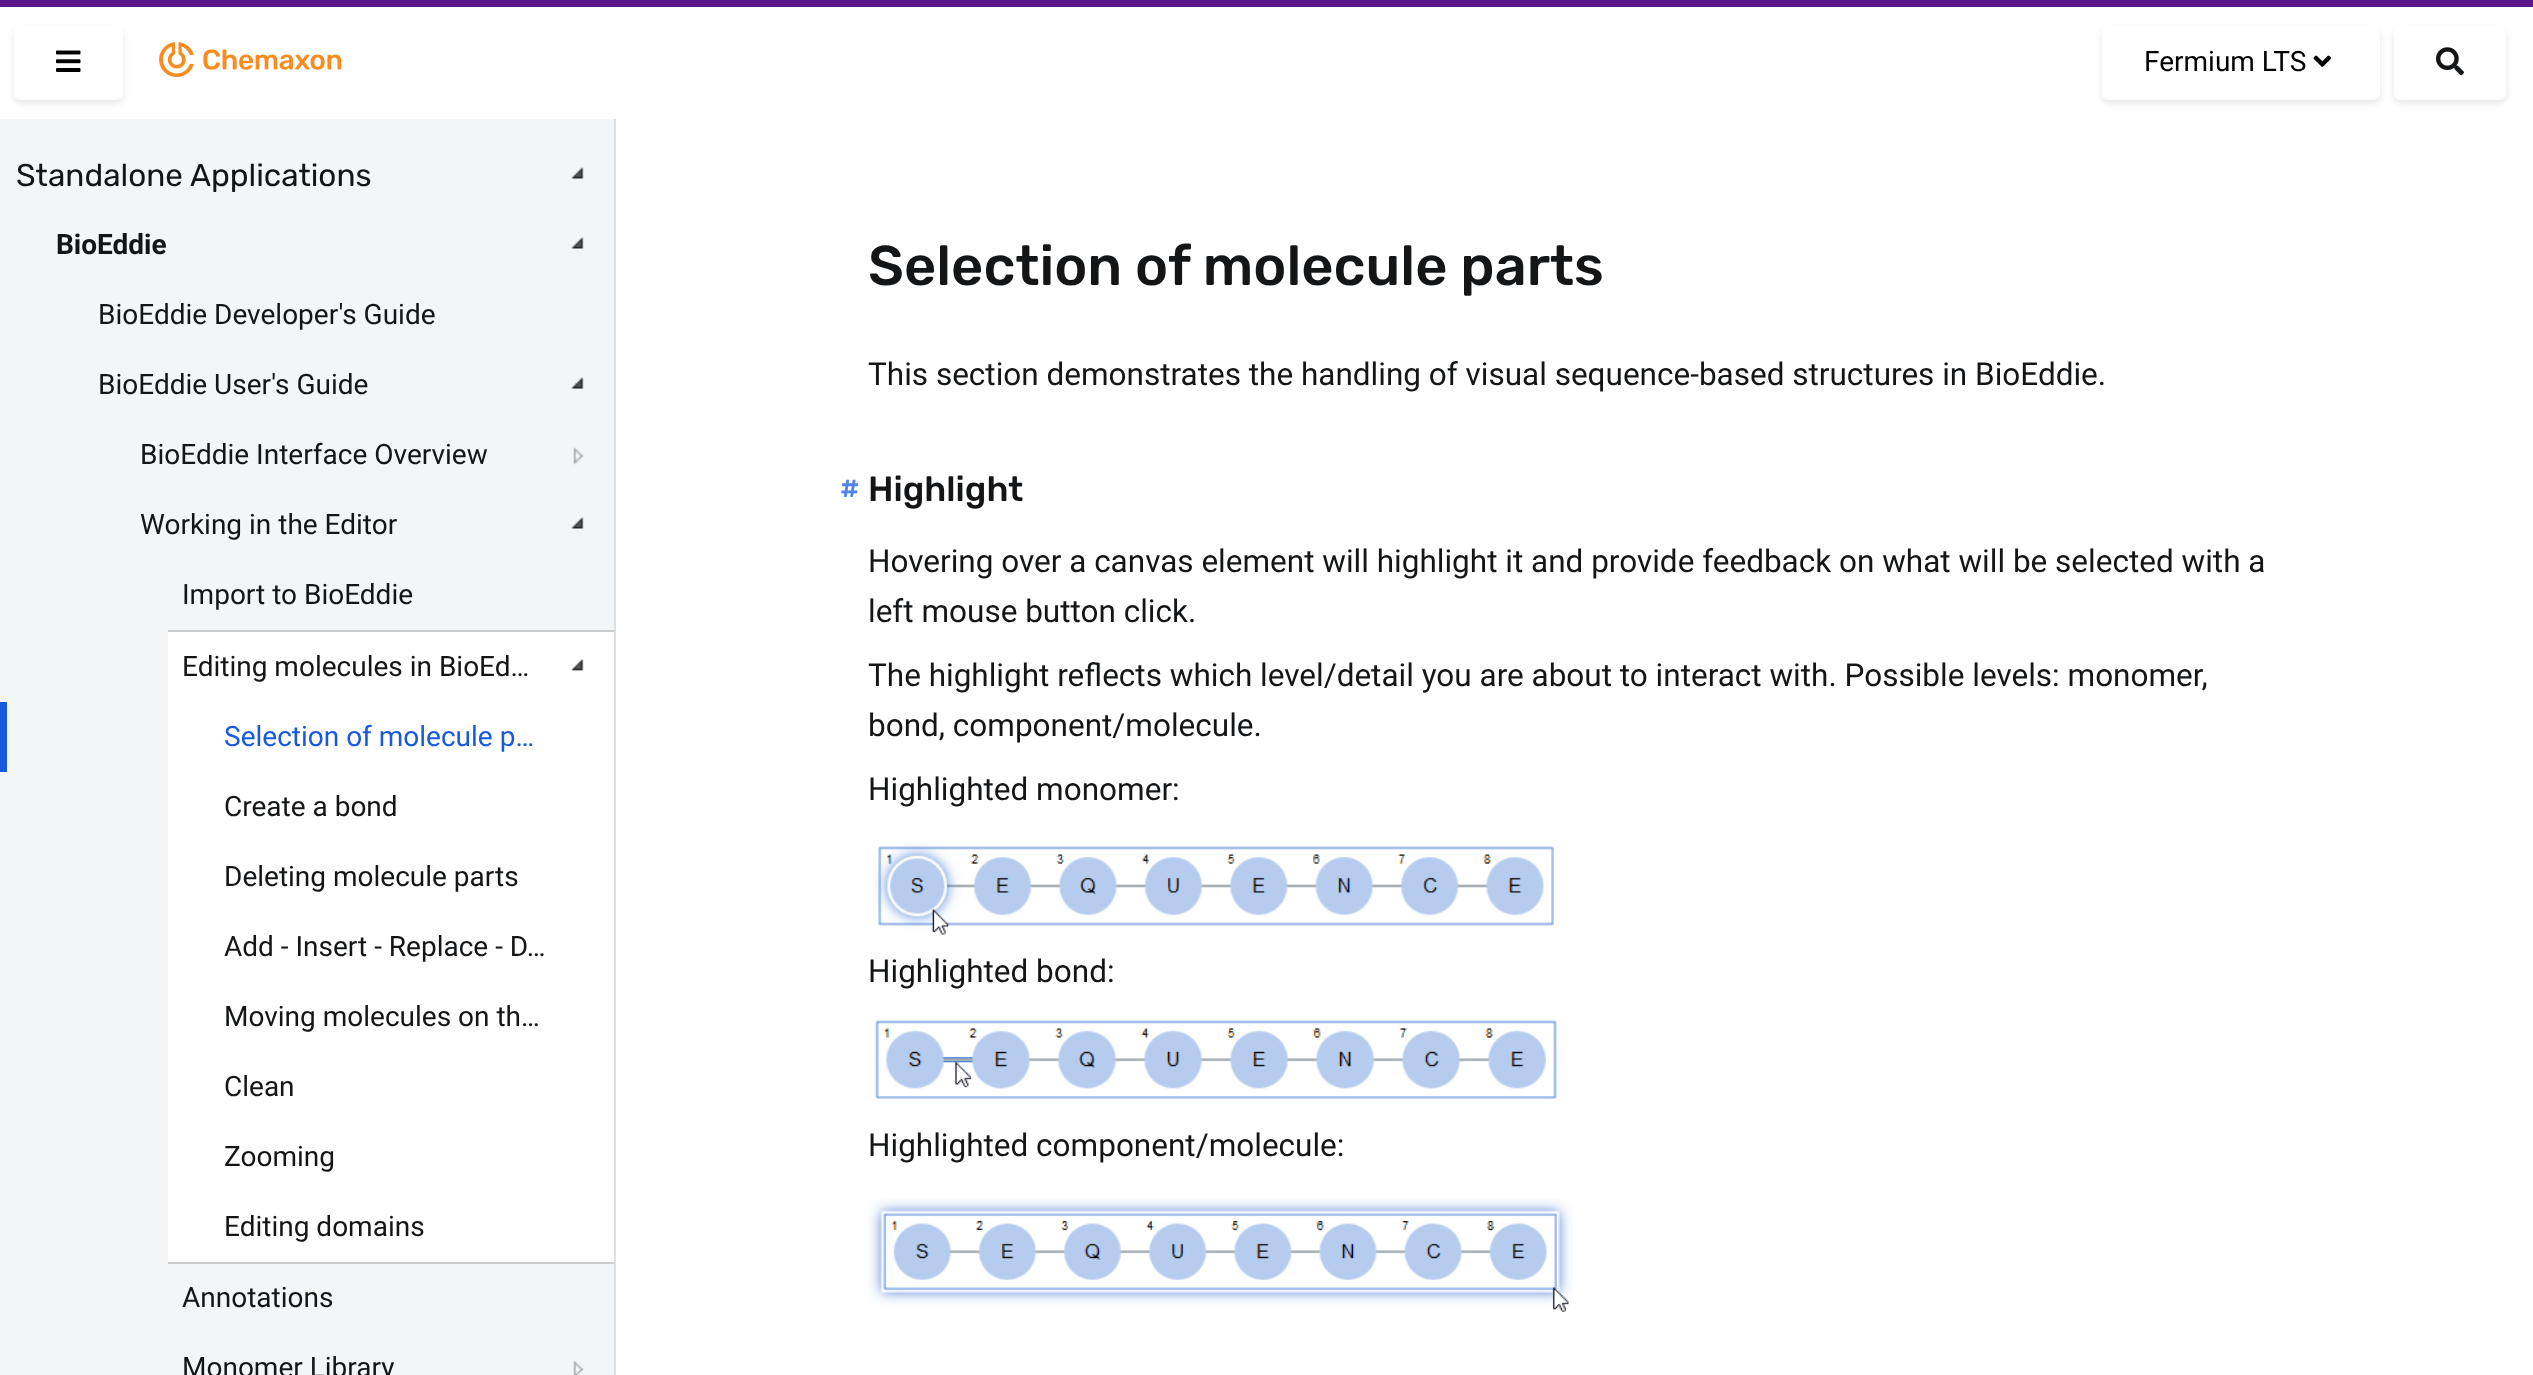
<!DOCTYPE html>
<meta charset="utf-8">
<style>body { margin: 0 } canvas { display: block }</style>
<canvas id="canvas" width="2533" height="1375"></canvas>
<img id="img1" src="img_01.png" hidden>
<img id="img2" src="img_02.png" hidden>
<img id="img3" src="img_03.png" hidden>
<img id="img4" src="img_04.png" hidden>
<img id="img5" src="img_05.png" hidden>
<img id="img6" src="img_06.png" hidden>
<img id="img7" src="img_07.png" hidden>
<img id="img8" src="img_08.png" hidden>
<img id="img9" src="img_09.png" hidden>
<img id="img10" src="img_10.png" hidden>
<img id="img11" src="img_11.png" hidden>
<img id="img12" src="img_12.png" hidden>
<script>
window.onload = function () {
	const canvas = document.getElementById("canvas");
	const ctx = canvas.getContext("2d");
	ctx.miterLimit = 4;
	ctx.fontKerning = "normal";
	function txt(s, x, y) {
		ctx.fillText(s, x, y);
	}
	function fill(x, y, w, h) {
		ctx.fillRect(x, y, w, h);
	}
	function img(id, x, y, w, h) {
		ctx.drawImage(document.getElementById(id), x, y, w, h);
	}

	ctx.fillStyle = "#FFFFFF";
	fill(0, 0, 2533, 1375);
	ctx.fillStyle = "#5A1788";
	fill(0, 0, 2533, 7);
	ctx.fillStyle = "#DAE1E7";
	fill(614, 112, 2, 1263);
	ctx.fillStyle = "#FFFFFF";
	fill(614, 112, 2, 7);
	ctx.save();
	ctx.beginPath();
	ctx.moveTo(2, 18);
	ctx.lineTo(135, 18);
	ctx.lineTo(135, 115);
	ctx.lineTo(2, 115);
	ctx.closePath();
	ctx.moveTo(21, 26);
	ctx.lineTo(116, 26);
	ctx.bezierCurveTo(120, 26, 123, 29, 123, 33);
	ctx.lineTo(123, 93);
	ctx.bezierCurveTo(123, 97, 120, 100, 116, 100);
	ctx.lineTo(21, 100);
	ctx.bezierCurveTo(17, 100, 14, 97, 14, 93);
	ctx.lineTo(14, 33);
	ctx.bezierCurveTo(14, 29, 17, 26, 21, 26);
	ctx.closePath();
	ctx.clip("evenodd");
	ctx.fillStyle = "rgba(0, 0, 0, 0.1)";
	ctx.filter = "blur(3.5px)";
	ctx.beginPath();
	ctx.roundRect(14, 30, 109, 73, 7);
	ctx.fill();
	ctx.filter = "none";
	ctx.restore();
	img("img1", 56, 50, 25, 22);
	img("img2", 159, 42, 183, 35);
	ctx.save();
	ctx.beginPath();
	ctx.moveTo(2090, 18);
	ctx.lineTo(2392, 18);
	ctx.lineTo(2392, 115);
	ctx.lineTo(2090, 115);
	ctx.closePath();
	ctx.moveTo(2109, 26);
	ctx.lineTo(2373, 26);
	ctx.bezierCurveTo(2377, 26, 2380, 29, 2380, 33);
	ctx.lineTo(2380, 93);
	ctx.bezierCurveTo(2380, 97, 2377, 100, 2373, 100);
	ctx.lineTo(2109, 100);
	ctx.bezierCurveTo(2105, 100, 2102, 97, 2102, 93);
	ctx.lineTo(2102, 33);
	ctx.bezierCurveTo(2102, 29, 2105, 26, 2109, 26);
	ctx.closePath();
	ctx.clip("evenodd");
	ctx.fillStyle = "rgba(0, 0, 0, 0.1)";
	ctx.filter = "blur(3.5px)";
	ctx.beginPath();
	ctx.roundRect(2102, 30, 278, 73, 7);
	ctx.fill();
	ctx.filter = "none";
	ctx.restore();
	img("img3", 2313, 55, 18, 12);
	ctx.save();
	ctx.beginPath();
	ctx.moveTo(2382, 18);
	ctx.lineTo(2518, 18);
	ctx.lineTo(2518, 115);
	ctx.lineTo(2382, 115);
	ctx.closePath();
	ctx.moveTo(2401, 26);
	ctx.lineTo(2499, 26);
	ctx.bezierCurveTo(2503, 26, 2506, 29, 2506, 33);
	ctx.lineTo(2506, 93);
	ctx.bezierCurveTo(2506, 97, 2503, 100, 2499, 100);
	ctx.lineTo(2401, 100);
	ctx.bezierCurveTo(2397, 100, 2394, 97, 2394, 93);
	ctx.lineTo(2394, 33);
	ctx.bezierCurveTo(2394, 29, 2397, 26, 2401, 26);
	ctx.closePath();
	ctx.clip("evenodd");
	ctx.fillStyle = "rgba(0, 0, 0, 0.1)";
	ctx.filter = "blur(3.5px)";
	ctx.beginPath();
	ctx.roundRect(2394, 30, 112, 73, 7);
	ctx.fill();
	ctx.filter = "none";
	ctx.restore();
	img("img4", 2436, 47, 28, 29);
	ctx.fillStyle = "#F4F5F7";
	fill(0, 119, 614, 1256);
	img("img5", 571, 167, 13, 12);
	img("img5", 571, 237, 13, 12);
	img("img6", 571, 377, 13, 12);
	img("img7", 573, 447, 11, 18);
	img("img5", 571, 517, 13, 12);
	ctx.fillStyle = "#FFFFFF";
	fill(168, 632, 446, 630);
	ctx.fillStyle = "#CCCCCC";
	fill(168, 630, 446, 2);
	fill(168, 1262, 446, 2);
	img("img8", 571, 659, 13, 12);
	ctx.fillStyle = "#185ADD";
	fill(0, 702, 7, 70);
	img("img9", 573, 1361, 11, 14);
	img("img10", 875, 843, 679, 92);
	img("img11", 875, 1020, 682, 79);
	img("img12", 868, 1198, 705, 114);
	ctx.font = "28px Roboto";
	ctx.fillStyle = "#000000";
	txt("Fermium LTS", 2144, 71);
	ctx.font = "31.5px Rubik";
	ctx.fillStyle = "#131517";
	txt("Standalone Applications", 16, 186);
	ctx.font = "bold 28px Roboto";
	txt("BioEddie", 56, 254);
	ctx.font = "28px Roboto";
	txt("BioEddie Developer's Guide", 98, 324);
	txt("BioEddie User's Guide", 98, 394);
	txt("BioEddie Interface Overview", 140, 464);
	txt("Working in the Editor", 140, 534);
	txt("Import to BioEddie", 182, 604);
	txt("Editing molecules in BioEd…", 182, 676);
	ctx.fillStyle = "#185ADD";
	txt("Selection of molecule p…", 224, 746);
	ctx.fillStyle = "#131517";
	txt("Create a bond", 224, 816);
	txt("Deleting molecule parts", 224, 886);
	txt("Add - Insert - Replace - D…", 224, 956);
	txt("Moving molecules on th…", 224, 1026);
	txt("Clean", 224, 1096);
	txt("Zooming", 224, 1166);
	txt("Editing domains", 224, 1236);
	txt("Annotations", 182, 1307);
	txt("Monomer Library", 182, 1377);
	ctx.font = "500 56px Rubik";
	txt("Selection of molecule parts", 868, 285);
	ctx.font = "31.5px Roboto";
	txt("This section demonstrates the handling of visual sequence-based structures in BioEddie.", 868, 385);
	ctx.font = "500 28px Rubik";
	ctx.fillStyle = "#5283E6";
	txt("#", 840, 498);
	ctx.font = "500 35px Rubik";
	ctx.fillStyle = "#131517";
	txt("Highlight", 868, 501);
	ctx.font = "31.5px Roboto";
	txt("Hovering over a canvas element will highlight it and provide feedback on what will be selected with a", 868, 572);
	txt("left mouse button click.", 868, 622);
	txt("The highlight reflects which level/detail you are about to interact with. Possible levels: monomer,", 868, 686);
	txt("bond, component/molecule.", 868, 736);
	txt("Highlighted monomer:", 868, 800);
	txt("Highlighted bond:", 868, 982);
	txt("Highlighted component/molecule:", 868, 1156);
};
</script>
